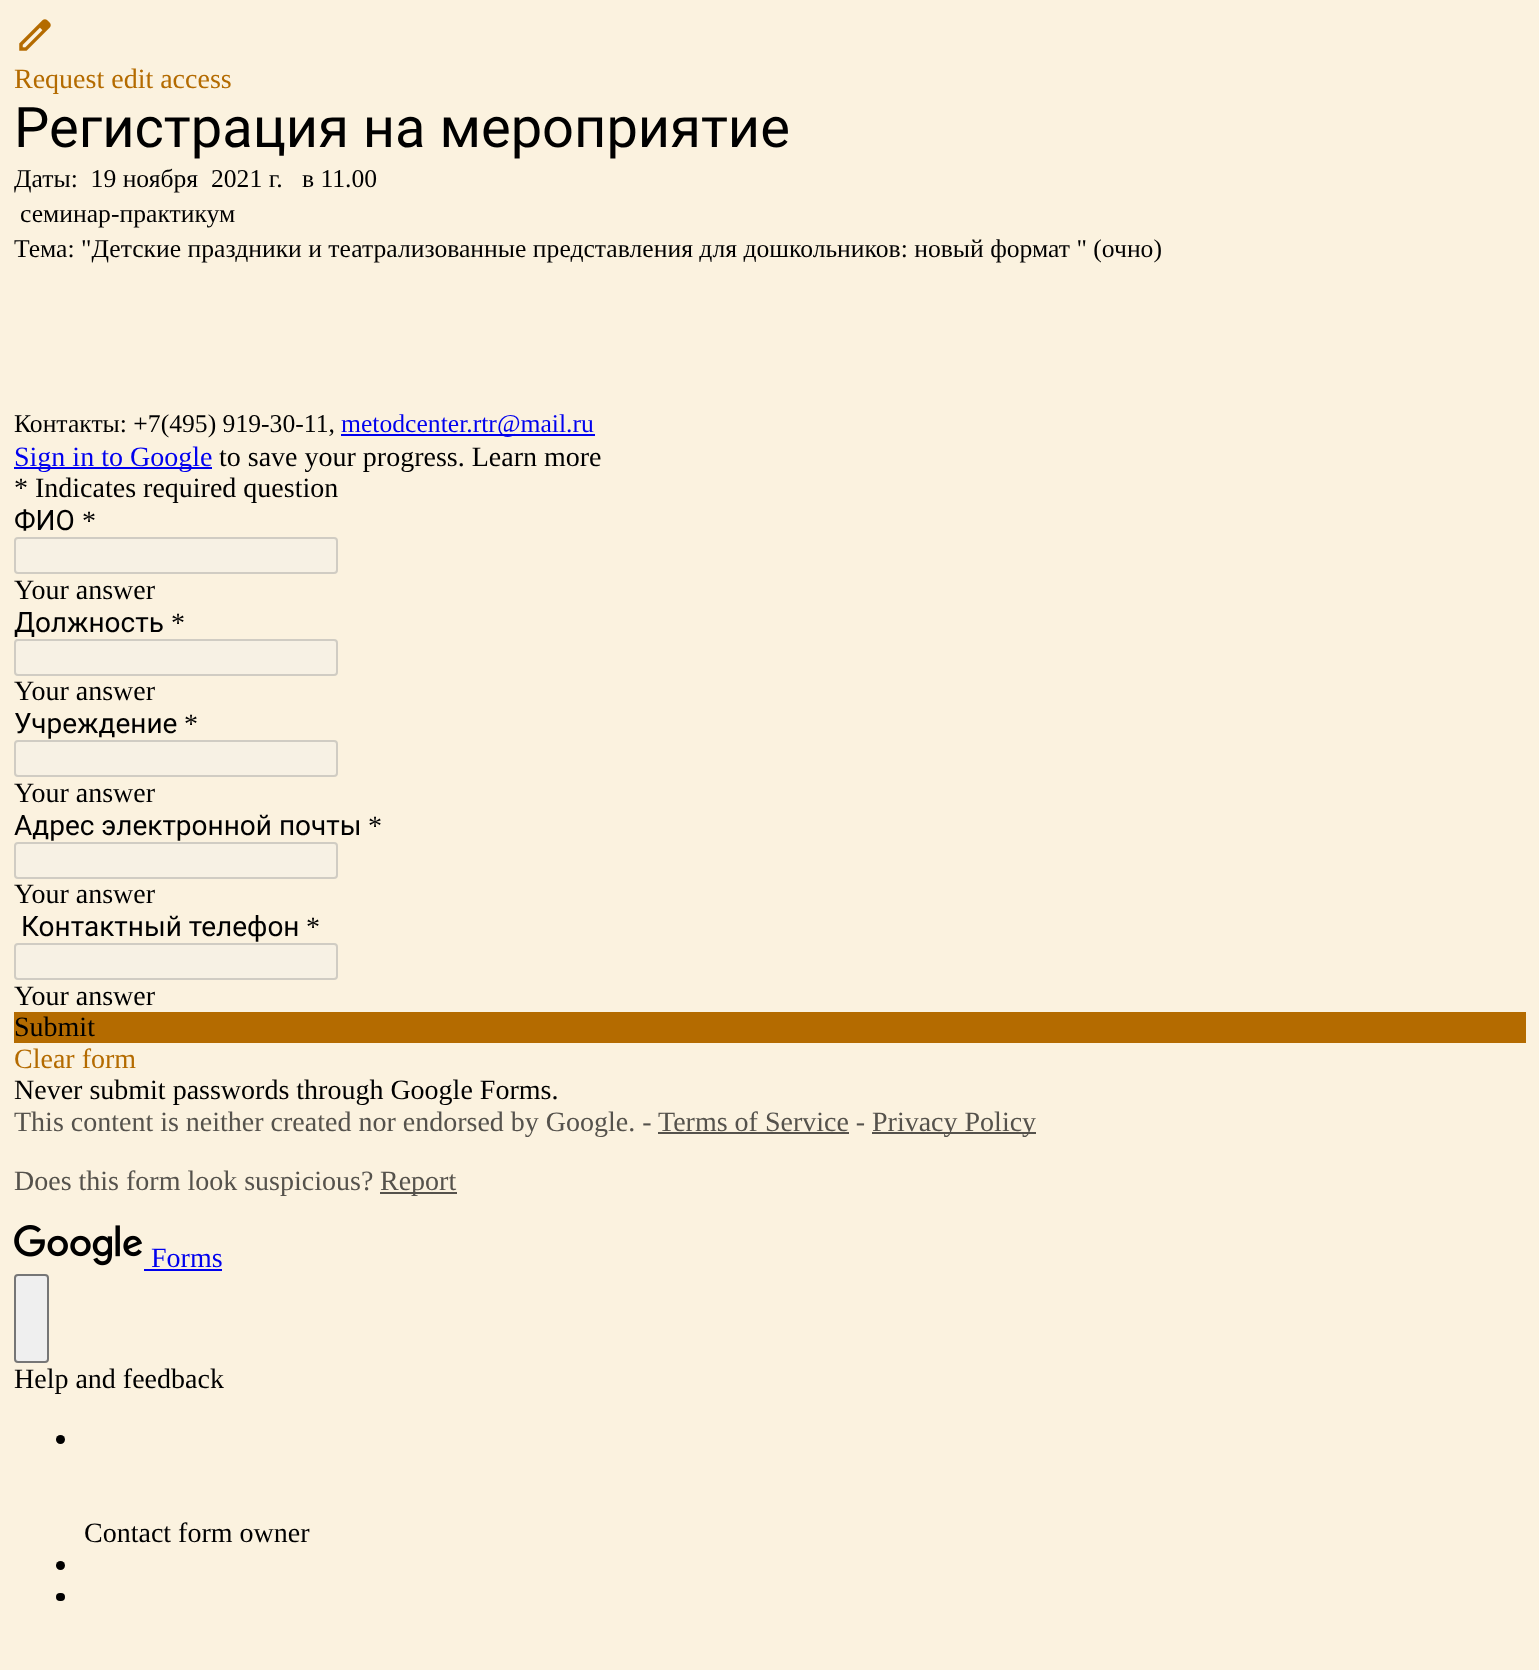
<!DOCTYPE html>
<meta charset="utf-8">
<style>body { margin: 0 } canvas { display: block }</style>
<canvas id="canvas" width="1539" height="1670"></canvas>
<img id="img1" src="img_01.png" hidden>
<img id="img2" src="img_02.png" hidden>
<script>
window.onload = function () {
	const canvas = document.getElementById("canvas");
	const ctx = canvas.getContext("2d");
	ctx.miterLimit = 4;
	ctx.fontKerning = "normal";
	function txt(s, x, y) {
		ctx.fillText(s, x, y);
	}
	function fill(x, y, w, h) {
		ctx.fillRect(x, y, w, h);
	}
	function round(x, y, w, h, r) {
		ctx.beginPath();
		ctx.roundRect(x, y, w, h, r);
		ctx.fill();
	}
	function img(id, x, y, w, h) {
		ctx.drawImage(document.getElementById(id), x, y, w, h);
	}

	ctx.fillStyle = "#FBF2DF";
	fill(0, 0, 1539, 1670);
	img("img1", 19, 19, 32, 32);
	ctx.fillStyle = "#0000EE";
	fill(341, 434, 254, 2);
	fill(14, 467, 198, 2);
	ctx.fillStyle = "#F7F1E4";
	ctx.beginPath();
	ctx.roundRect(15, 538, 322, 35, 3);
	ctx.fill();
	ctx.strokeStyle = "#D0CCC3";
	ctx.lineWidth = 2;
	ctx.stroke();
	ctx.beginPath();
	ctx.roundRect(15, 640, 322, 35, 3);
	ctx.fill();
	ctx.stroke();
	ctx.beginPath();
	ctx.roundRect(15, 741, 322, 35, 3);
	ctx.fill();
	ctx.stroke();
	ctx.beginPath();
	ctx.roundRect(15, 843, 322, 35, 3);
	ctx.fill();
	ctx.stroke();
	ctx.beginPath();
	ctx.roundRect(15, 944, 322, 35, 3);
	ctx.fill();
	ctx.stroke();
	ctx.fillStyle = "#B46B00";
	fill(14, 1012, 1512, 31);
	ctx.fillStyle = "#55524C";
	fill(658, 1132, 191, 2);
	fill(872, 1132, 164, 2);
	fill(380, 1192, 77, 2);
	img("img2", 14, 1225, 128, 41);
	ctx.fillStyle = "#0000EE";
	fill(144, 1269, 78, 2);
	ctx.fillStyle = "#EFEFEF";
	ctx.beginPath();
	ctx.roundRect(15, 1275, 33, 87, 3);
	ctx.fill();
	ctx.strokeStyle = "#767676";
	ctx.stroke();
	ctx.fillStyle = "#000000";
	ctx.beginPath();
	ctx.arc(60.5, 1439.5, 4.5, 0, Math.PI * 2);
	ctx.fill();
	ctx.beginPath();
	ctx.arc(60.5, 1565.5, 4.5, 0, Math.PI * 2);
	ctx.fill();
	round(56, 1593, 9, 8, 4);
	ctx.font = "28px Liberation Serif";
	ctx.fillStyle = "#B46B00";
	txt("Request edit access", 14, 88);
	ctx.font = "56px Roboto";
	ctx.fillStyle = "#000000";
	txt("Регистрация на мероприятие", 14, 147);
	ctx.font = "25.65px Liberation Serif";
	txt("Даты:  19 ноября  2021 г.   в 11.00", 14, 187);
	txt("семинар-практикум", 20, 222);
	txt("Тема: \"Детские праздники и театрализованные представления для дошкольников: новый формат \" (очно)", 14, 257);
	txt("Контакты: +7(495) 919-30-11,", 14, 432);
	ctx.fillStyle = "#0000EE";
	txt("metodcenter.rtr@mail.ru", 341, 432);
	ctx.font = "28px Liberation Serif";
	txt("Sign in to Google", 14, 466);
	ctx.fillStyle = "#000000";
	txt("to save your progress. Learn more", 219, 466);
	txt("* Indicates required question", 14, 497);
	ctx.font = "28px Roboto";
	txt("ФИО", 14, 530);
	ctx.font = "28px Liberation Serif";
	txt("*", 82, 530);
	txt("Your answer", 14, 599);
	ctx.font = "28px Roboto";
	txt("Должность", 14, 632);
	ctx.font = "28px Liberation Serif";
	txt("*", 171, 632);
	txt("Your answer", 14, 700);
	ctx.font = "28px Roboto";
	txt("Учреждение", 14, 733);
	ctx.font = "28px Liberation Serif";
	txt("*", 184, 733);
	txt("Your answer", 14, 802);
	ctx.font = "28px Roboto";
	txt("Адрес электронной почты", 14, 835);
	ctx.font = "28px Liberation Serif";
	txt("*", 368, 835);
	txt("Your answer", 14, 903);
	ctx.font = "28px Roboto";
	txt("Контактный телефон", 21, 936);
	ctx.font = "28px Liberation Serif";
	txt("*", 306, 936);
	txt("Your answer", 14, 1005);
	txt("Submit", 14, 1036);
	ctx.fillStyle = "#B46B00";
	txt("Clear form", 14, 1068);
	ctx.fillStyle = "#000000";
	txt("Never submit passwords through Google Forms.", 14, 1099);
	ctx.fillStyle = "#55524C";
	txt("This content is neither created nor endorsed by Google. -", 14, 1131);
	txt("Terms of Service -", 658, 1131);
	txt("Privacy Policy", 872, 1131);
	txt("Does this form look suspicious?", 14, 1190);
	txt("Report", 380, 1190);
	ctx.fillStyle = "#0000EE";
	txt("Forms", 151, 1267);
	ctx.fillStyle = "#000000";
	txt("Help and feedback", 14, 1388);
	txt("Contact form owner", 84, 1542);
};
</script>
